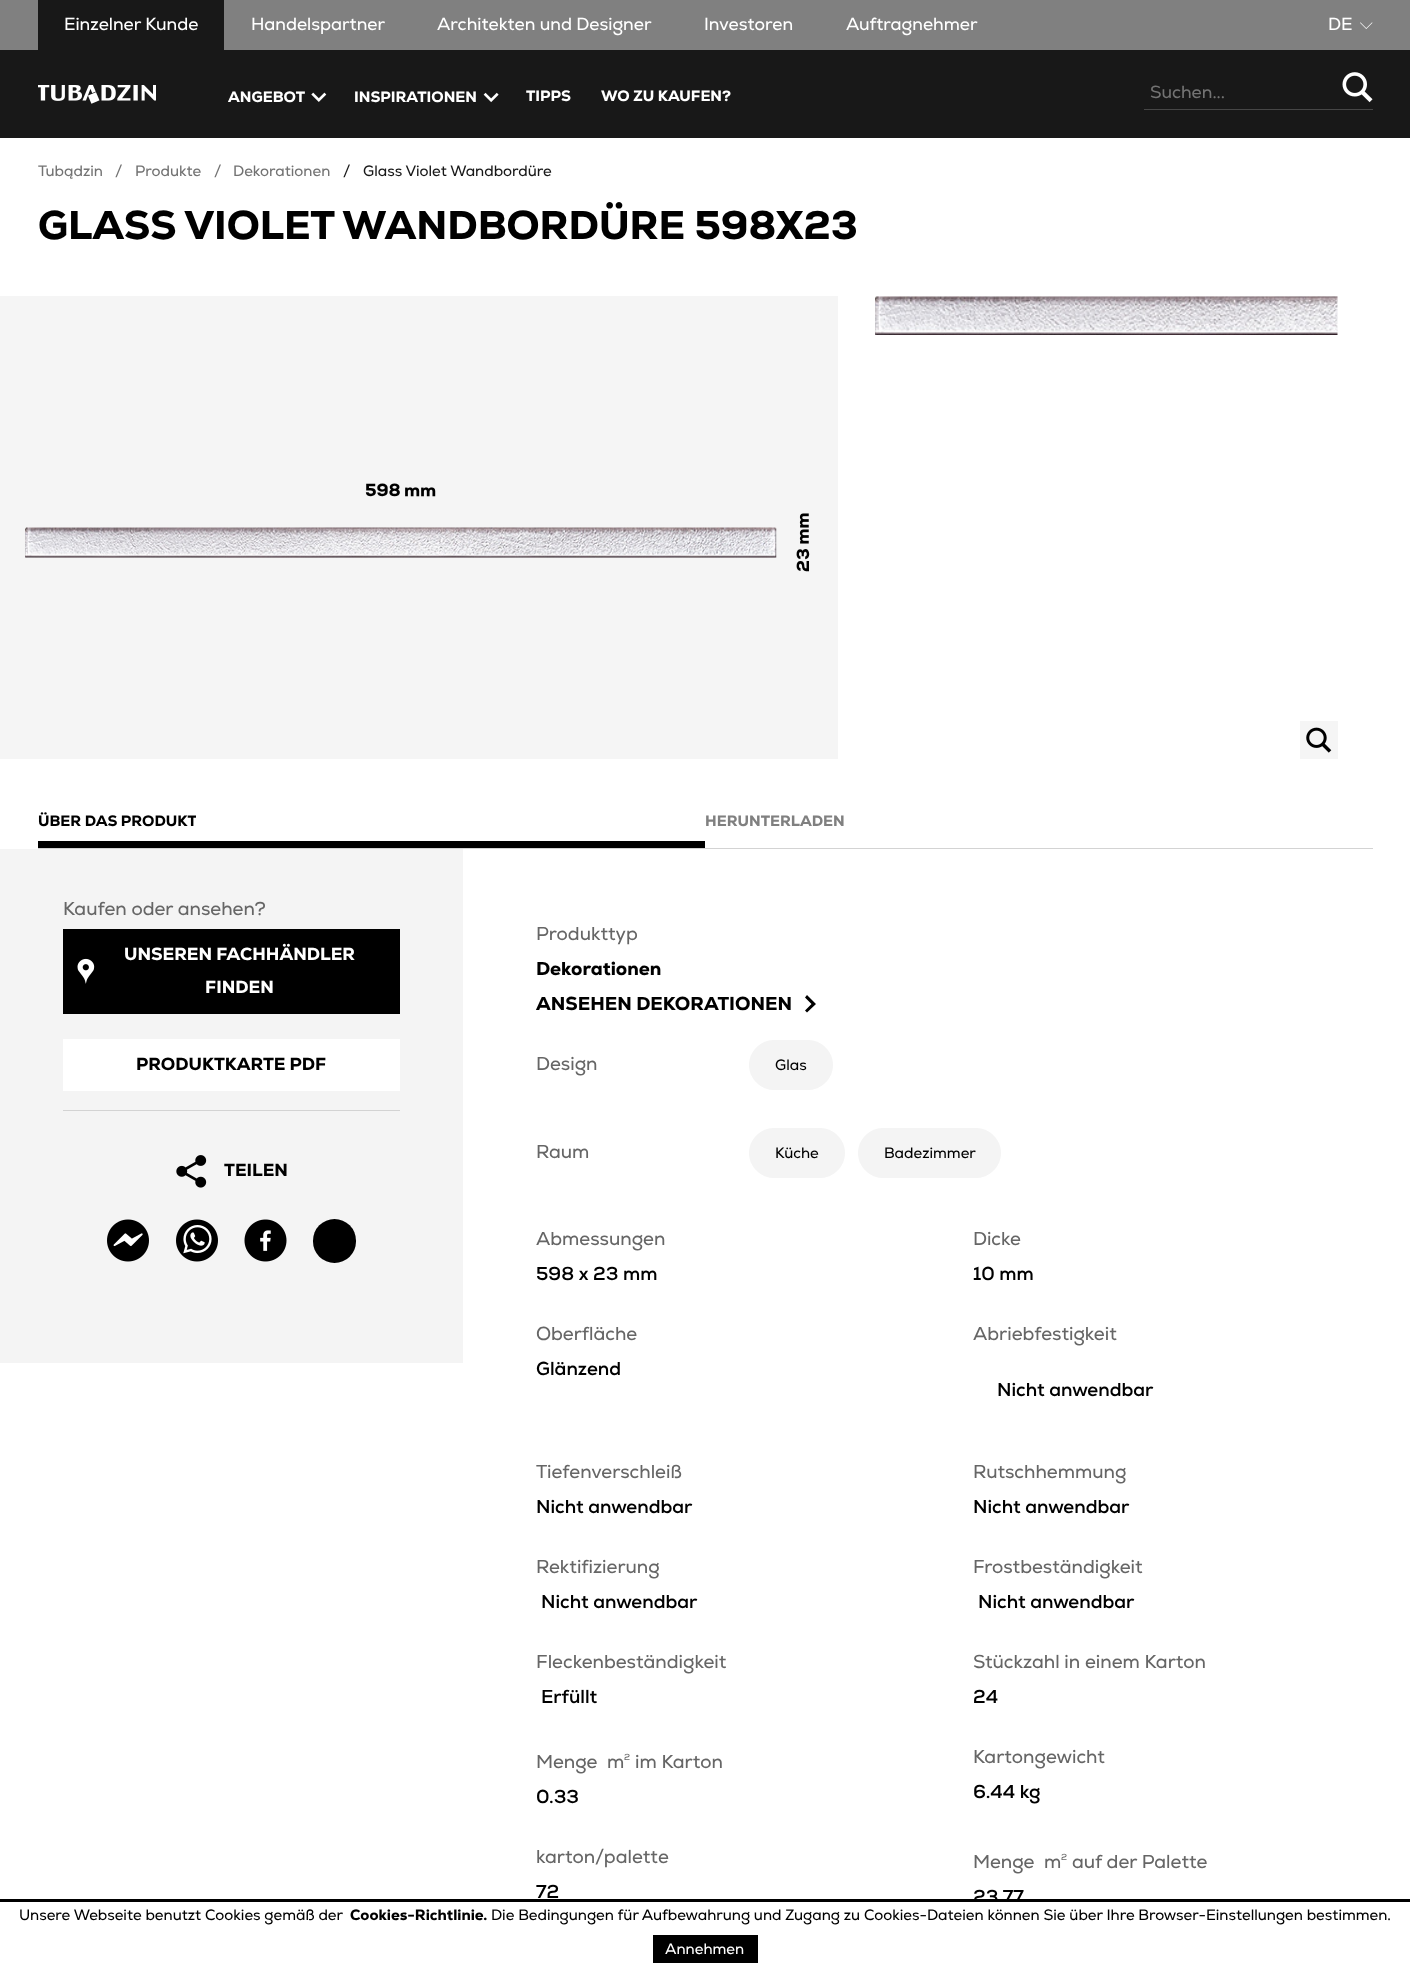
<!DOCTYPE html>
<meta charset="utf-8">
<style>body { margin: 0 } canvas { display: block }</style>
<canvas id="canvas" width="1410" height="1975"></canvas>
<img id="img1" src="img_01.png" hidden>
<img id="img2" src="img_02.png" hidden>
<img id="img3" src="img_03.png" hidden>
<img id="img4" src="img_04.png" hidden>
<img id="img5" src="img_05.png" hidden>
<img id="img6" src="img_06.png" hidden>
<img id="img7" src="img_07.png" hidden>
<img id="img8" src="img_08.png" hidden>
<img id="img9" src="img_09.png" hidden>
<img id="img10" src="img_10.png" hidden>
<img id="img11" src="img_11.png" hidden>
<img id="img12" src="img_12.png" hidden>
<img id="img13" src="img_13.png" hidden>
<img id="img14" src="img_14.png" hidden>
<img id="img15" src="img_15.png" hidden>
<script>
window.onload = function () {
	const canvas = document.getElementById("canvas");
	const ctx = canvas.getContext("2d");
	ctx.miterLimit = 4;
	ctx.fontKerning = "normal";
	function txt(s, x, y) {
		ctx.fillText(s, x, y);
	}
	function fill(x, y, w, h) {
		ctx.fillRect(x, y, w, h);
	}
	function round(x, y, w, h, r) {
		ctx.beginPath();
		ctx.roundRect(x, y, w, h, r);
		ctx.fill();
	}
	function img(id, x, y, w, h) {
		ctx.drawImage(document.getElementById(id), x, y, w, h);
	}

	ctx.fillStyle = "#FFFFFF";
	fill(0, 0, 1410, 1975);
	ctx.fillStyle = "#808080";
	fill(0, 0, 1410, 50);
	ctx.fillStyle = "#181818";
	fill(38, 0, 186, 50);
	img("img1", 1360, 22, 13, 7);
	fill(0, 50, 1410, 88);
	img("img2", 38, 85, 118, 19);
	img("img3", 311, 92, 16, 10);
	img("img4", 483, 92, 16, 11);
	ctx.fillStyle = "#464646";
	fill(1144, 109, 229, 1);
	img("img5", 1342, 72, 31, 31);
	ctx.fillStyle = "#F5F5F5";
	fill(0, 296, 838, 463);
	img("img6", 405, 487, 31, 10);
	img("img7", 25, 527, 752, 31);
	img("img8", 799, 513, 10, 31);
	img("img9", 875, 296, 463, 39);
	fill(1300, 721, 38, 38);
	img("img10", 1306, 727, 26, 26);
	ctx.fillStyle = "#D3D3D3";
	fill(38, 848, 1335, 1);
	ctx.fillStyle = "#000000";
	fill(38, 841, 667, 7);
	ctx.fillStyle = "#F4F4F4";
	fill(0, 849, 463, 514);
	ctx.fillStyle = "#000000";
	fill(63, 929, 337, 85);
	img("img11", 77, 958, 18, 26);
	ctx.fillStyle = "#FFFFFF";
	fill(63, 1039, 337, 52);
	ctx.fillStyle = "#D3D3D3";
	fill(63, 1110, 337, 1);
	img("img12", 176, 1155, 31, 33);
	img("img13", 107, 1219, 42, 43);
	img("img14", 176, 1219, 42, 43);
	img("img15", 244, 1219, 43, 43);
	ctx.fillStyle = "#000000";
	round(313, 1219, 43, 44, 21.5);
	ctx.beginPath();
	ctx.moveTo(807, 995);
	ctx.lineTo(805, 997.5);
	ctx.lineTo(811.5, 1004);
	ctx.lineTo(805, 1010.5);
	ctx.lineTo(807, 1012.5);
	ctx.lineTo(816, 1004);
	ctx.closePath();
	ctx.fill();
	ctx.fillStyle = "#F4F4F4";
	ctx.beginPath();
	ctx.roundRect(749.5, 1040.5, 83, 49, 24.5);
	ctx.fill();
	ctx.strokeStyle = "#F4F4F4";
	ctx.stroke();
	ctx.beginPath();
	ctx.roundRect(749.5, 1128.5, 95, 49, 24.5);
	ctx.fill();
	ctx.stroke();
	ctx.beginPath();
	ctx.roundRect(858.5, 1128.5, 142, 49, 24.5);
	ctx.fill();
	ctx.stroke();
	ctx.fillStyle = "#000000";
	fill(0, 1899, 1410, 3);
	fill(653, 1935, 105, 28);
	ctx.font = "17.5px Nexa";
	ctx.fillStyle = "#FFFFFF";
	txt("Einzelner Kunde", 64, 30);
	txt("Handelspartner", 251, 30);
	txt("Architekten und Designer", 437, 30);
	txt("Investoren", 704, 30);
	txt("Auftragnehmer", 846, 30);
	txt("DE", 1328, 30);
	ctx.font = "900 15px Nexa";
	txt("ANGEBOT", 228, 102);
	txt("INSPIRATIONEN", 354, 102);
	txt("TIPPS", 526, 101);
	txt("WO ZU KAUFEN?", 601, 101);
	ctx.font = "17.5px Nexa";
	ctx.fillStyle = "#737373";
	txt("Suchen...", 1150, 98);
	ctx.font = "15px Nexa";
	txt("Tubądzin", 38, 176);
	txt("/", 115, 176);
	txt("Produkte", 135, 176);
	txt("/", 214, 176);
	txt("Dekorationen", 233, 176);
	ctx.fillStyle = "#181818";
	txt("/", 343, 176);
	txt("Glass Violet Wandbordüre", 363, 176);
	ctx.font = "900 40px Nexa";
	ctx.fillStyle = "#000000";
	txt("GLASS VIOLET WANDBORDÜRE 598X23", 38, 239);
	ctx.font = "900 17.5px Nexa";
	txt("598", 365, 496);
	ctx.save();
	ctx.translate(809, 572);
	ctx.rotate(-90 * Math.PI / 180);
	ctx.fillText("23", 0, 0);
	ctx.restore();
	ctx.save();
	ctx.beginPath();
	ctx.rect(38, 796, 158, 50);
	ctx.clip();
	ctx.font = "900 15px Nexa";
	txt("ÜBER DAS PRODUKT", 38, 826);
	ctx.restore();
	ctx.font = "900 15px Nexa";
	ctx.fillStyle = "#808080";
	txt("HERUNTERLADEN", 705, 826);
	ctx.font = "18.75px Nexa";
	ctx.fillStyle = "#666666";
	txt("Kaufen oder ansehen?", 63, 915);
	ctx.font = "900 17.5px Nexa";
	ctx.fillStyle = "#FFFFFF";
	txt("UNSEREN FACHHÄNDLER", 124, 960);
	txt("FINDEN", 205, 993);
	ctx.fillStyle = "#000000";
	txt("PRODUKTKARTE PDF", 136, 1070);
	txt("TEILEN", 224, 1176);
	ctx.font = "18.75px Nexa";
	ctx.fillStyle = "#666666";
	txt("Produkttyp", 536, 940);
	ctx.font = "900 18.75px Nexa";
	ctx.fillStyle = "#000000";
	txt("Dekorationen", 536, 975);
	txt("ANSEHEN DEKORATIONEN", 536, 1010);
	ctx.font = "18.75px Nexa";
	ctx.fillStyle = "#666666";
	txt("Design", 536, 1070);
	ctx.font = "15px Nexa";
	ctx.fillStyle = "#000000";
	txt("Glas", 775, 1070);
	ctx.font = "18.75px Nexa";
	ctx.fillStyle = "#666666";
	txt("Raum", 536, 1158);
	ctx.font = "15px Nexa";
	ctx.fillStyle = "#000000";
	txt("Küche", 775, 1158);
	txt("Badezimmer", 884, 1158);
	ctx.font = "18.75px Nexa";
	ctx.fillStyle = "#666666";
	txt("Abmessungen", 536, 1245);
	ctx.font = "bold 18.75px Nexa";
	ctx.fillStyle = "#000000";
	txt("598 x 23 mm", 536, 1280);
	ctx.font = "18.75px Nexa";
	ctx.fillStyle = "#666666";
	txt("Dicke", 973, 1245);
	ctx.font = "bold 18.75px Nexa";
	ctx.fillStyle = "#000000";
	txt("10 mm", 973, 1280);
	ctx.font = "18.75px Nexa";
	ctx.fillStyle = "#666666";
	txt("Oberfläche", 536, 1340);
	ctx.font = "bold 18.75px Nexa";
	ctx.fillStyle = "#000000";
	txt("Glänzend", 536, 1375);
	ctx.font = "18.75px Nexa";
	ctx.fillStyle = "#666666";
	txt("Abriebfestigkeit", 973, 1340);
	ctx.font = "bold 18.75px Nexa";
	ctx.fillStyle = "#000000";
	txt("Nicht anwendbar", 997, 1396);
	ctx.font = "18.75px Nexa";
	ctx.fillStyle = "#666666";
	txt("Tiefenverschleiß", 536, 1478);
	ctx.font = "bold 18.75px Nexa";
	ctx.fillStyle = "#000000";
	txt("Nicht anwendbar", 536, 1513);
	ctx.font = "18.75px Nexa";
	ctx.fillStyle = "#666666";
	txt("Rutschhemmung", 973, 1478);
	ctx.font = "bold 18.75px Nexa";
	ctx.fillStyle = "#000000";
	txt("Nicht anwendbar", 973, 1513);
	ctx.font = "18.75px Nexa";
	ctx.fillStyle = "#666666";
	txt("Rektifizierung", 536, 1573);
	ctx.font = "bold 18.75px Nexa";
	ctx.fillStyle = "#000000";
	txt("Nicht anwendbar", 541, 1608);
	ctx.font = "18.75px Nexa";
	ctx.fillStyle = "#666666";
	txt("Frostbeständigkeit", 973, 1573);
	ctx.font = "bold 18.75px Nexa";
	ctx.fillStyle = "#000000";
	txt("Nicht anwendbar", 978, 1608);
	ctx.font = "18.75px Nexa";
	ctx.fillStyle = "#666666";
	txt("Fleckenbeständigkeit", 536, 1668);
	ctx.font = "bold 18.75px Nexa";
	ctx.fillStyle = "#000000";
	txt("Erfüllt", 541, 1703);
	ctx.font = "18.75px Nexa";
	ctx.fillStyle = "#666666";
	txt("Stückzahl in einem Karton", 973, 1668);
	ctx.font = "bold 18.75px Nexa";
	ctx.fillStyle = "#000000";
	txt("24", 973, 1703);
	ctx.font = "18.75px Nexa";
	ctx.fillStyle = "#666666";
	txt("Menge", 536, 1768);
	txt("m", 607, 1768);
	ctx.font = "9px Nexa";
	txt("2", 624, 1760);
	ctx.font = "18.75px Nexa";
	txt("im Karton", 635, 1768);
	ctx.font = "bold 18.75px Nexa";
	ctx.fillStyle = "#000000";
	txt("0.33", 536, 1803);
	ctx.font = "18.75px Nexa";
	ctx.fillStyle = "#666666";
	txt("Kartongewicht", 973, 1763);
	ctx.font = "bold 18.75px Nexa";
	ctx.fillStyle = "#000000";
	txt("6.44 kg", 973, 1798);
	ctx.font = "18.75px Nexa";
	ctx.fillStyle = "#666666";
	txt("karton/palette", 536, 1863);
	ctx.font = "bold 18.75px Nexa";
	ctx.fillStyle = "#000000";
	txt("72", 536, 1898);
	ctx.font = "18.75px Nexa";
	ctx.fillStyle = "#666666";
	txt("Menge", 973, 1868);
	txt("m", 1044, 1868);
	ctx.font = "9px Nexa";
	txt("2", 1061, 1860);
	ctx.font = "18.75px Nexa";
	txt("auf der Palette", 1072, 1868);
	ctx.font = "bold 18.75px Nexa";
	ctx.fillStyle = "#000000";
	txt("23.77", 973, 1903);
	ctx.fillStyle = "#FFFFFF";
	fill(974, 1902, 45, 2);
	ctx.font = "15px Nexa";
	ctx.fillStyle = "#000000";
	txt("Unsere Webseite benutzt Cookies gemäß der", 19, 1920);
	ctx.font = "900 15px Nexa";
	txt("Cookies-Richtlinie.", 350, 1920);
	ctx.font = "15px Nexa";
	txt("Die Bedingungen für Aufbewahrung und Zugang zu Cookies-Dateien können Sie über Ihre Browser-Einstellungen bestimmen.", 491, 1920);
	ctx.fillStyle = "#FFFFFF";
	txt("Annehmen", 665, 1954);
};
</script>
